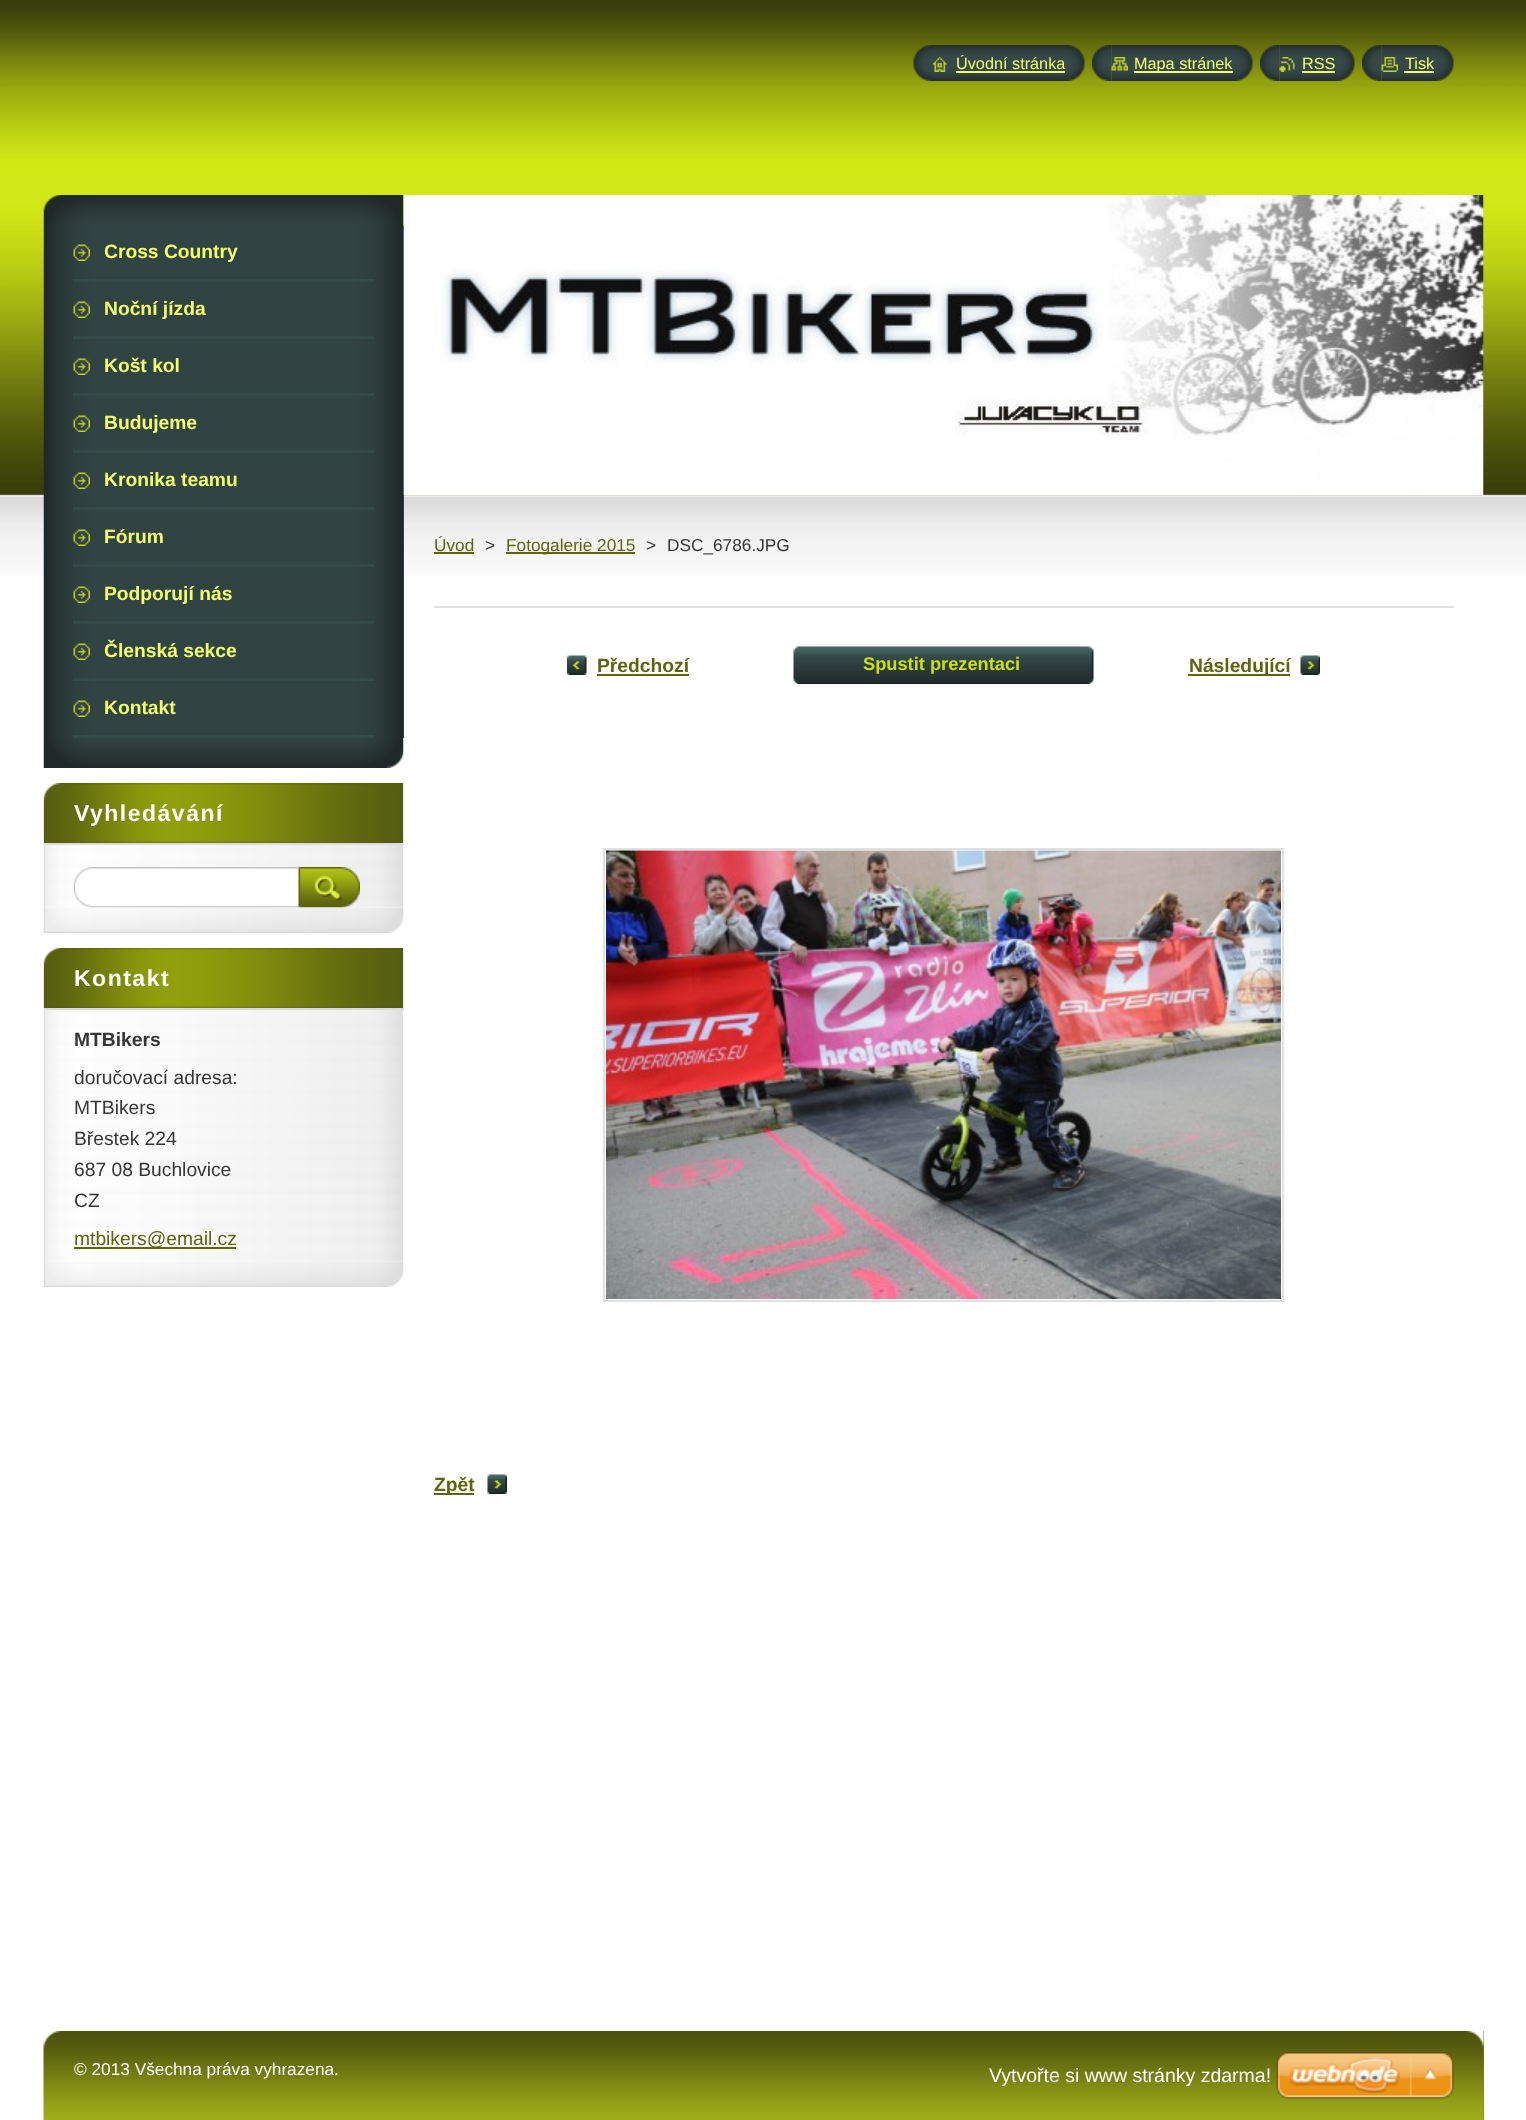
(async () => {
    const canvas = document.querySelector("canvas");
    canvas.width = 1526;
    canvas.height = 2120;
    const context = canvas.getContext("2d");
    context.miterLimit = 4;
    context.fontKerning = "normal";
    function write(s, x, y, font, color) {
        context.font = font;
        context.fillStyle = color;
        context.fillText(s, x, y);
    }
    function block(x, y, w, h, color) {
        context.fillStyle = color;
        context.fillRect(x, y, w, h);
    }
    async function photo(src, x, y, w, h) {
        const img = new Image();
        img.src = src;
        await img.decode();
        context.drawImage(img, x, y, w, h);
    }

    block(0, 0, 1526, 2120, "rgb(255, 255, 255)");
    await photo("media/1.png", 0, 0, 1526, 576);
    await photo("media/2.png", 913, 45, 20, 36);
    await photo("media/3.png", 933, 45, 152, 36);
    await photo("media/4.png", 933, 57, 14, 15);
    write("Úvodní stránka", 956, 69, "16.25px Liberation Sans", "rgb(240, 255, 109)");
    block(956, 71, 109, 2, "rgb(240, 255, 109)");
    await photo("media/5.png", 1092, 45, 20, 36);
    await photo("media/6.png", 1111, 45, 142, 36);
    await photo("media/7.png", 1111, 57, 17, 14);
    block(1134, 71, 99, 2, "rgb(240, 255, 109)");
    write("Mapa stránek", 1134, 69, "16.25px Liberation Sans", "rgb(240, 255, 109)");
    await photo("media/8.png", 1260, 45, 20, 36);
    await photo("media/9.png", 1279, 45, 76, 36);
    await photo("media/10.png", 1279, 57, 16, 15);
    write("RSS", 1302, 69, "16.25px Liberation Sans", "rgb(240, 255, 109)");
    block(1302, 71, 33, 2, "rgb(240, 255, 109)");
    await photo("media/5.png", 1362, 45, 20, 36);
    await photo("media/11.png", 1381, 45, 73, 36);
    await photo("media/12.png", 1381, 57, 17, 15);
    write("Tisk", 1405, 69, "16.25px Liberation Sans", "rgb(240, 255, 109)");
    block(1404, 71, 30, 2, "rgb(240, 255, 109)");
    await photo("media/13.png", 43, 195, 361, 30);
    await photo("media/14.png", 43, 738, 361, 30);
    block(403, 225, 1, 513, "rgb(54, 72, 72)");
    await photo("media/15.png", 43, 225, 361, 513);
    block(73, 279, 301, 3, "rgb(53, 73, 73)");
    await photo("media/16.png", 73, 244, 17, 17);
    write("Cross Country", 104, 258, "bold 19.25px Liberation Sans", "rgb(240, 255, 109)");
    block(73, 336, 301, 3, "rgb(53, 73, 73)");
    await photo("media/16.png", 73, 301, 17, 17);
    write("Noční jízda", 104, 315, "bold 19.25px Liberation Sans", "rgb(240, 255, 109)");
    block(73, 393, 301, 3, "rgb(53, 73, 73)");
    await photo("media/16.png", 73, 358, 17, 17);
    write("Košt kol", 104, 372, "bold 19.25px Liberation Sans", "rgb(240, 255, 109)");
    block(73, 450, 301, 3, "rgb(53, 73, 73)");
    await photo("media/16.png", 73, 415, 17, 17);
    write("Budujeme", 104, 429, "bold 19.25px Liberation Sans", "rgb(240, 255, 109)");
    block(73, 507, 301, 3, "rgb(53, 73, 73)");
    await photo("media/16.png", 73, 472, 17, 17);
    write("Kronika teamu", 104, 486, "bold 19.25px Liberation Sans", "rgb(240, 255, 109)");
    block(73, 564, 301, 3, "rgb(53, 73, 73)");
    await photo("media/16.png", 73, 529, 17, 17);
    write("Fórum", 104, 543, "bold 19.25px Liberation Sans", "rgb(240, 255, 109)");
    block(73, 621, 301, 3, "rgb(53, 73, 73)");
    await photo("media/16.png", 73, 586, 17, 17);
    write("Podporují nás", 104, 600, "bold 19.25px Liberation Sans", "rgb(240, 255, 109)");
    block(73, 678, 301, 3, "rgb(53, 73, 73)");
    await photo("media/16.png", 73, 643, 17, 17);
    write("Členská sekce", 104, 657, "bold 19.25px Liberation Sans", "rgb(240, 255, 109)");
    block(73, 735, 301, 3, "rgb(53, 73, 73)");
    await photo("media/16.png", 73, 700, 17, 17);
    write("Kontakt", 104, 714, "bold 19.25px Liberation Sans", "rgb(240, 255, 109)");
    await photo("media/17.png", 43, 907, 361, 26);
    await photo("media/18.png", 43, 783, 361, 60);
    context.letterSpacing = "1.5px";
    write("Vyhledávání", 74, 821, "bold 23px Liberation Sans", "rgb(255, 255, 255)");
    await photo("media/19.png", 43, 843, 361, 65);
    block(44, 843, 360, 2, "rgb(219, 219, 219)");
    await photo("media/20.png", 73, 867, 227, 41);
    await photo("media/21.png", 298, 867, 62, 41);
    await photo("media/17.png", 43, 1261, 361, 26);
    await photo("media/18.png", 43, 948, 361, 60);
    write("Kontakt", 74, 986, "bold 23px Liberation Sans", "rgb(255, 255, 255)");
    await photo("media/22.png", 43, 1008, 361, 254);
    block(44, 1008, 360, 2, "rgb(219, 219, 219)");
    context.letterSpacing = "0px";
    write("MTBikers", 74, 1046, "bold 19.25px Liberation Sans", "rgb(54, 54, 54)");
    write("doručovací adresa:", 74, 1084, "19.25px Liberation Sans", "rgb(54, 54, 54)");
    write("MTBikers", 74, 1114, "19.25px Liberation Sans", "rgb(54, 54, 54)");
    write("Břestek 224", 74, 1145, "19.25px Liberation Sans", "rgb(54, 54, 54)");
    write("687 08 Buchlovice", 74, 1176, "19.25px Liberation Sans", "rgb(54, 54, 54)");
    write("CZ", 74, 1207, "19.25px Liberation Sans", "rgb(54, 54, 54)");
    block(74, 1247, 162, 2, "rgb(93, 101, 14)");
    write("mtbikers@email.cz", 74, 1245, "19.25px Liberation Sans", "rgb(93, 101, 14)");
    await photo("media/23.png", 403, 195, 1081, 300);
    write("Úvod", 434, 551, "17.25px Liberation Sans", "rgb(93, 101, 14)");
    block(434, 552, 40, 2, "rgb(93, 101, 14)");
    write(">", 485, 551, "17.25px Liberation Sans", "rgb(54, 54, 54)");
    block(506, 552, 129, 2, "rgb(93, 101, 14)");
    write("Fotogalerie 2015", 506, 551, "17.25px Liberation Sans", "rgb(93, 101, 14)");
    write(">", 646, 551, "17.25px Liberation Sans", "rgb(54, 54, 54)");
    write("DSC_6786.JPG", 667, 551, "17.25px Liberation Sans", "rgb(54, 54, 54)");
    block(434, 606, 1020, 2, "rgb(225, 225, 225)");
    await photo("media/24.png", 567, 655, 20, 20);
    write("Předchozí", 597, 672, "bold 19.25px Liberation Sans", "rgb(93, 101, 14)");
    block(597, 674, 92, 2, "rgb(93, 101, 14)");
    await photo("media/25.png", 793, 646, 7, 38);
    await photo("media/26.png", 798, 646, 296, 38);
    write("Spustit prezentaci", 863, 670, "bold 18.25px Liberation Sans", "rgb(202, 223, 22)");
    await photo("media/27.png", 1300, 655, 20, 20);
    block(1188, 674, 102, 2, "rgb(93, 101, 14)");
    write("Následující", 1189, 672, "bold 19.25px Liberation Sans", "rgb(93, 101, 14)");
    context.strokeStyle = "rgb(225, 225, 225)";
    context.lineWidth = 2;
    context.strokeRect(604, 849, 679, 452);
    await photo("media/28.png", 606, 850, 675, 449);
    await photo("media/29.png", 487, 1474, 20, 20);
    block(434, 1493, 40, 2, "rgb(93, 101, 14)");
    write("Zpět", 434, 1491, "bold 19.25px Liberation Sans", "rgb(93, 101, 14)");
    block(1483, 2031, 1, 89, "rgb(114, 125, 18)");
    await photo("media/30.png", 43, 2031, 1441, 89);
    write("© 2013 Všechna práva vyhrazena.", 74, 2075, "17.25px Liberation Sans", "rgb(255, 255, 255)");
    write("Vytvořte si www stránky zdarma!", 989, 2082, "19.5px Liberation Sans", "rgb(255, 255, 255)");
    await photo("media/31.png", 1276, 2052, 178, 47);
})();
